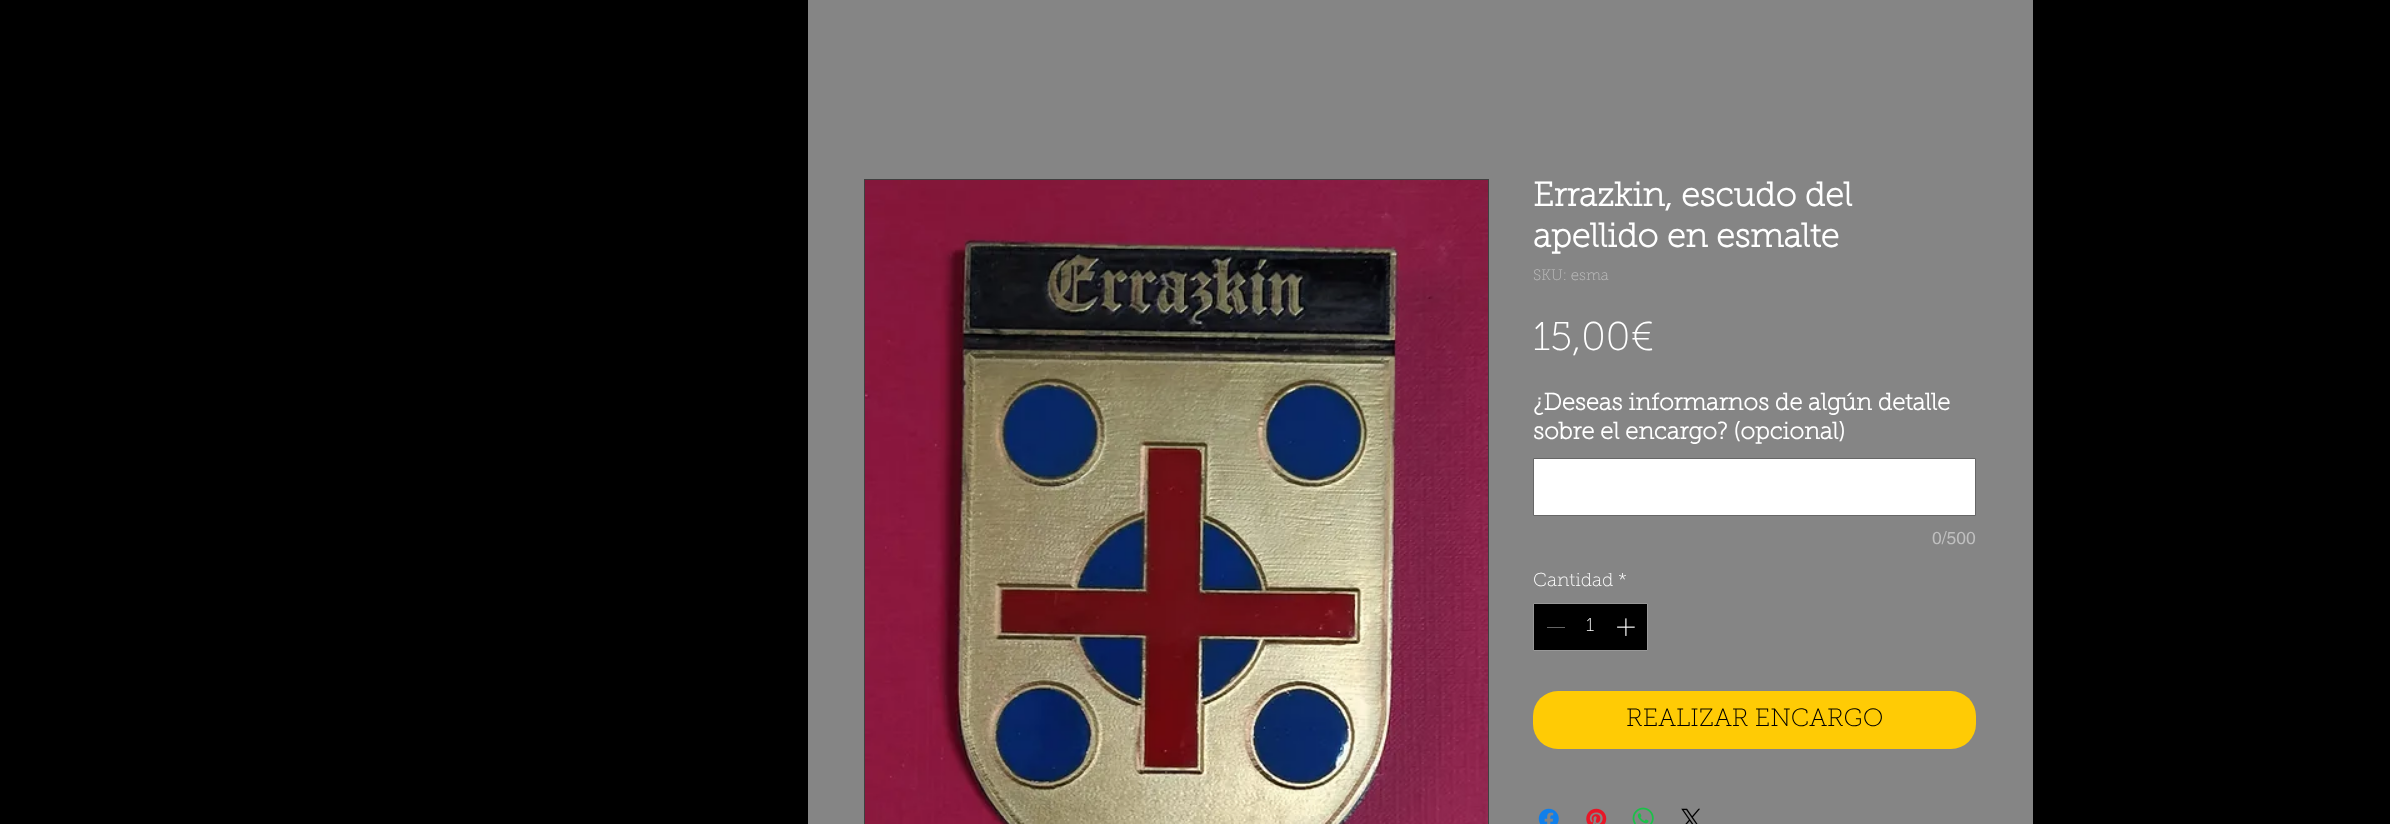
(async () => {
    const canvas = document.querySelector("canvas");
    canvas.width = 2390;
    canvas.height = 824;
    const context = canvas.getContext("2d");
    context.miterLimit = 4;
    context.fontKerning = "normal";
    function write(s, x, y, font, color) {
        context.font = font;
        context.fillStyle = color;
        context.fillText(s, x, y);
    }
    function block(x, y, w, h, color) {
        context.fillStyle = color;
        context.fillRect(x, y, w, h);
    }
    function card(x, y, w, h, r, color) {
        context.fillStyle = color;
        context.beginPath();
        context.roundRect(x, y, w, h, r);
        context.fill();
    }
    async function photo(src, x, y, w, h) {
        const img = new Image();
        img.src = src;
        await img.decode();
        context.drawImage(img, x, y, w, h);
    }

    block(0, 0, 2390, 824, "rgb(0, 0, 0)");
    block(808, 0, 1225, 824, "rgb(133, 133, 133)");
    context.strokeStyle = "rgb(64, 64, 64)";
    context.strokeRect(864.5, 179.5, 624, 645);
    await photo("media/1.png", 865, 180, 623, 644);
    write("Errazkin, escudo del", 1533, 206, "bold 33.75px 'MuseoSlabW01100'", "rgb(255, 255, 255)");
    write("apellido en esmalte", 1533, 247, "bold 33.75px 'MuseoSlabW01100'", "rgb(255, 255, 255)");
    write("SKU: esma", 1533, 280, "100 15px 'MuseoSlabW01100'", "rgb(191, 191, 191)");
    write("15,00€", 1533, 350, "100 40px 'MuseoSlabW01100'", "rgb(255, 255, 255)");
    write("¿Deseas informarnos de algún detalle", 1533, 410, "bold 23.75px 'MuseoSlabW01100'", "rgb(255, 255, 255)");
    write("sobre el encargo? (opcional)", 1533, 439, "bold 23.75px 'MuseoSlabW01100'", "rgb(255, 255, 255)");
    context.beginPath();
    context.rect(1533.5, 458.5, 442, 57);
    context.fill();
    context.strokeStyle = "rgb(102, 102, 102)";
    context.stroke();
    write("0/500", 1932, 544, "17.5px helvetica", "rgb(191, 191, 191)");
    write("Cantidad", 1533, 586, "100 18.75px 'MuseoSlabW01100'", "rgb(255, 255, 255)");
    write("*", 1618, 586, "100 18.75px 'MuseoSlabW01100'", "rgb(255, 255, 255)");
    context.fillStyle = "rgb(0, 0, 0)";
    context.beginPath();
    context.rect(1533.5, 603.5, 114, 47);
    context.fill();
    context.strokeStyle = "rgb(153, 153, 153)";
    context.stroke();
    block(1547, 627, 18, 1, "rgb(100, 100, 100)");
    write("1", 1586, 631, "100 18.75px 'MuseoSlabW01100'", "rgb(255, 255, 255)");
    await photo("media/2.png", 1617, 618, 18, 18);
    card(1533, 691, 443, 58, 25, "rgb(255, 203, 5)");
    write("REALIZAR ENCARGO", 1626, 726, "100 25px 'MuseoSlabW01100'", "rgb(0, 0, 0)");
    await photo("media/3.png", 1538, 808, 21, 16);
    await photo("media/4.png", 1586, 808, 21, 16);
    await photo("media/5.png", 1632, 807, 22, 17);
    await photo("media/6.png", 1681, 808, 19, 16);
})();
